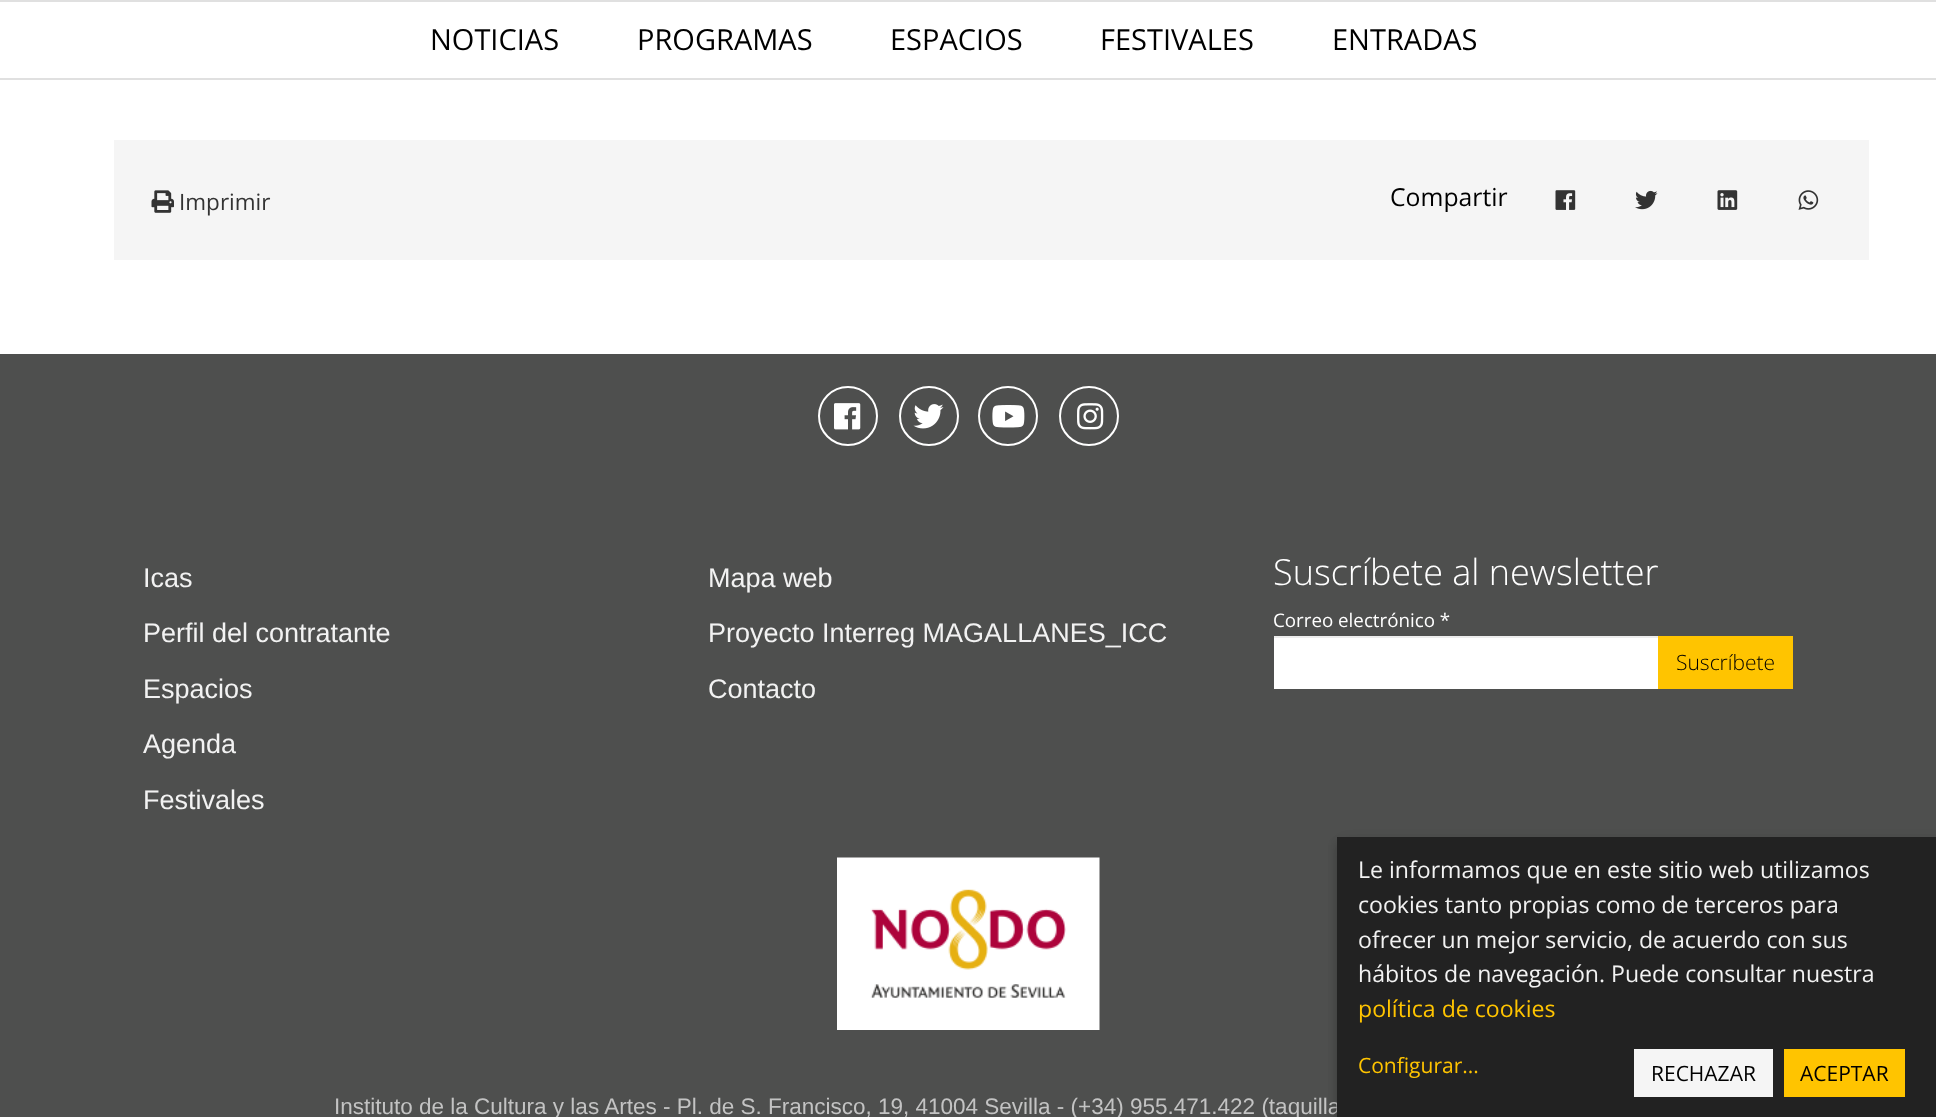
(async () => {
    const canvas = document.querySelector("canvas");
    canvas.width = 1936;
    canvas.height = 1117;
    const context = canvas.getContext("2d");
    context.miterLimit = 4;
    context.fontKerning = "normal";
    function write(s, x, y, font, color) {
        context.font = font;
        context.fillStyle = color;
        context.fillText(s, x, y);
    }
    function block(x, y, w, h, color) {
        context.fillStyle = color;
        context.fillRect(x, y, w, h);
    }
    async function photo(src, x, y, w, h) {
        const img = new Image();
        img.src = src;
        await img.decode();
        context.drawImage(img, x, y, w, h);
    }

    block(0, 0, 1936, 1117, "rgb(78, 79, 78)");
    block(0, 80, 1936, 274, "rgb(255, 255, 255)");
    block(0, 2, 1936, 76, "rgb(255, 255, 255)");
    block(0, 0, 1936, 2, "rgb(224, 224, 224)");
    block(0, 78, 1936, 2, "rgb(224, 224, 224)");
    write("NOTICIAS", 430, 50, "29px Open Sans", "rgb(0, 0, 0)");
    write("PROGRAMAS", 637, 50, "29px Open Sans", "rgb(0, 0, 0)");
    write("ESPACIOS", 890, 50, "29px Open Sans", "rgb(0, 0, 0)");
    write("FESTIVALES", 1100, 50, "29px Open Sans", "rgb(0, 0, 0)");
    write("ENTRADAS", 1332, 50, "29px Open Sans", "rgb(0, 0, 0)");
    block(114, 140, 1755, 120, "rgb(245, 245, 245)");
    await photo("media/1.png", 151, 190, 23, 23);
    write("Imprimir", 179, 210, "22.5px Open Sans", "rgb(51, 51, 51)");
    write("Compartir", 1390, 206, "24.75px Open Sans", "rgb(0, 0, 0)");
    await photo("media/2.png", 1555, 190, 21, 20);
    await photo("media/3.png", 1635, 190, 23, 20);
    await photo("media/4.png", 1717, 190, 21, 20);
    await photo("media/5.png", 1798, 190, 21, 20);
    context.beginPath();
    context.arc(848, 416, 29, 0, Math.PI * 2);
    context.strokeStyle = "rgb(255, 255, 255)";
    context.lineWidth = 2;
    context.stroke();
    await photo("media/6.png", 834, 403, 27, 27);
    context.beginPath();
    context.arc(929, 416, 29, 0, Math.PI * 2);
    context.stroke();
    await photo("media/7.png", 913, 404, 31, 25);
    context.beginPath();
    context.arc(1008, 416, 29, 0, Math.PI * 2);
    context.stroke();
    await photo("media/8.png", 992, 405, 33, 23);
    context.beginPath();
    context.arc(1089, 416, 29, 0, Math.PI * 2);
    context.stroke();
    await photo("media/9.png", 1077, 403, 27, 27);
    write("Icas", 143, 587, "27px Liberation Sans", "rgb(242, 242, 242)");
    write("Perfil del contratante", 143, 642, "27px Liberation Sans", "rgb(242, 242, 242)");
    write("Espacios", 143, 698, "27px Liberation Sans", "rgb(242, 242, 242)");
    write("Agenda", 143, 753, "27px Liberation Sans", "rgb(242, 242, 242)");
    write("Festivales", 143, 809, "27px Liberation Sans", "rgb(242, 242, 242)");
    write("Mapa web", 708, 587, "27px Liberation Sans", "rgb(242, 242, 242)");
    write("Proyecto Interreg MAGALLANES_ICC", 708, 642, "27px Liberation Sans", "rgb(242, 242, 242)");
    write("Contacto", 708, 698, "27px Liberation Sans", "rgb(242, 242, 242)");
    write("Suscríbete al newsletter", 1273, 585, "300 36px Open Sans", "rgb(255, 255, 255)");
    write("Correo electrónico *", 1273, 627, "18.75px Open Sans", "rgb(255, 255, 255)");
    block(1274, 638, 384, 51, "rgb(255, 255, 255)");
    block(1274, 636, 384, 2, "rgb(236, 236, 236)");
    block(1658, 636, 135, 53, "rgb(255, 196, 0)");
    write("Suscríbete", 1676, 670, "300 21px Open Sans", "rgb(0, 0, 0)");
    await photo("media/10.png", 837, 857, 263, 173);
    write("Instituto de la Cultura y las Artes - Pl. de S. Francisco, 19, 41004 Sevilla - (+34) 955.471.422 (taquilla", 334, 1114, "22.5px Liberation Sans", "rgb(195, 195, 195)");
    context.fillStyle = "rgba(0, 0, 0, 0.19)";
    context.filter = "blur(7.5px)";
    context.beginPath();
    context.rect(1344, 845, 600, 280);
    context.fill();
    context.filter = "none";
    context.fillStyle = "rgba(0, 0, 0, 0.2)";
    context.filter = "blur(4.5px)";
    context.beginPath();
    context.rect(1337, 843, 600, 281);
    context.fill();
    context.filter = "none";
    block(1337, 837, 599, 280, "rgb(34, 34, 34)");
    write("Le informamos que en este sitio web utilizamos", 1358, 878, "23.1px Open Sans", "rgb(242, 242, 242)");
    write("cookies tanto propias como de terceros para", 1358, 913, "23.1px Open Sans", "rgb(242, 242, 242)");
    write("ofrecer un mejor servicio, de acuerdo con sus", 1358, 948, "23.1px Open Sans", "rgb(242, 242, 242)");
    write("hábitos de navegación. Puede consultar nuestra", 1358, 982, "23.1px Open Sans", "rgb(242, 242, 242)");
    write("política de cookies", 1358, 1017, "23.1px Open Sans", "rgb(255, 196, 0)");
    write("Configurar...", 1358, 1073, "21px Open Sans", "rgb(255, 196, 0)");
    block(1634, 1049, 139, 48, "rgb(245, 245, 245)");
    write("RECHAZAR", 1651, 1081, "21px Open Sans", "rgb(0, 0, 0)");
    block(1784, 1049, 121, 48, "rgb(255, 196, 0)");
    write("ACEPTAR", 1800, 1081, "21px Open Sans", "rgb(0, 0, 0)");
})();
